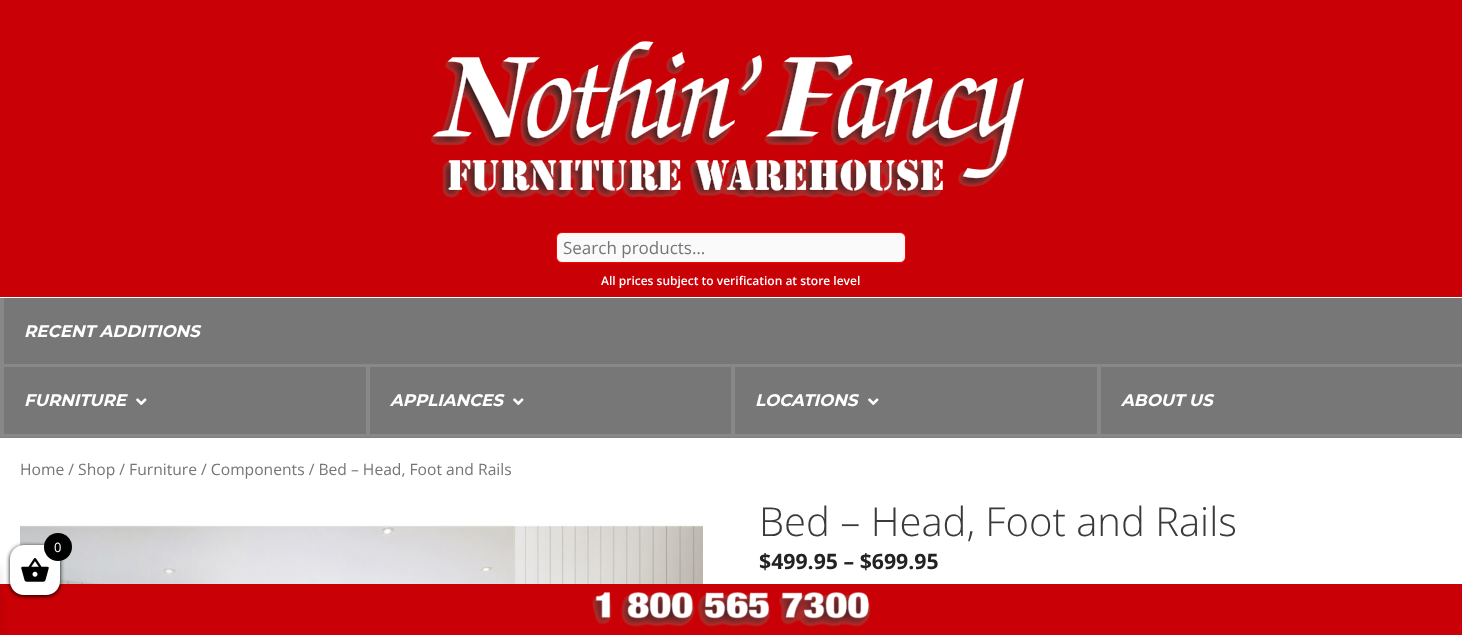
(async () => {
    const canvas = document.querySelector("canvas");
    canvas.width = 1462;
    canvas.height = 635;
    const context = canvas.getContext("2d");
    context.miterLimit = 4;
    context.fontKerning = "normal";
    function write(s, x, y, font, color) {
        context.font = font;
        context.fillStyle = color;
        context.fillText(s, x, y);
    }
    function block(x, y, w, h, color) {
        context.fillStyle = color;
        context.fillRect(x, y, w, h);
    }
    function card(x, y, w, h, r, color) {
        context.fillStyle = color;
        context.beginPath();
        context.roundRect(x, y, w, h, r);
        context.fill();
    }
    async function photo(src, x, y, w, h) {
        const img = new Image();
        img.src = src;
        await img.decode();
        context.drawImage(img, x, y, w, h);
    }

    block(0, 0, 1462, 635, "rgb(255, 255, 255)");
    block(0, 0, 1462, 297, "rgb(201, 0, 6)");
    await photo("media/1.png", 430, 41, 594, 157);
    context.fillStyle = "rgb(250, 250, 250)";
    context.beginPath();
    context.roundRect(556.5, 232.5, 349, 30, 5.5);
    context.fill();
    context.strokeStyle = "rgb(255, 0, 0)";
    context.stroke();
    write("Search products…", 563, 254, "17px Open Sans", "rgb(118, 118, 118)");
    write("All prices subject to verification at store level", 601, 285, "600 12px Open Sans", "rgb(255, 255, 255)");
    block(0, 437, 1462, 1, "rgb(128, 128, 128)");
    block(0, 364, 1462, 3, "rgb(136, 136, 136)");
    block(0, 298, 4, 69, "rgb(136, 136, 136)");
    block(4, 298, 1458, 66, "rgb(119, 119, 119)");
    write("RECENT ADDITIONS", 24, 337, "italic bold 16.75px Montserrat", "rgb(255, 255, 255)");
    block(0, 434, 1462, 3, "rgb(136, 136, 136)");
    block(0, 367, 4, 70, "rgb(136, 136, 136)");
    block(4, 367, 362, 67, "rgb(119, 119, 119)");
    write("FURNITURE", 24, 406, "italic bold 16.75px Montserrat", "rgb(255, 255, 255)");
    await photo("media/2.png", 136, 398, 11, 7);
    block(366, 367, 4, 70, "rgb(136, 136, 136)");
    block(370, 367, 361, 67, "rgb(119, 119, 119)");
    write("APPLIANCES", 390, 406, "italic bold 16.75px Montserrat", "rgb(255, 255, 255)");
    await photo("media/2.png", 513, 398, 11, 7);
    block(731, 367, 4, 70, "rgb(136, 136, 136)");
    block(735, 367, 362, 67, "rgb(119, 119, 119)");
    write("LOCATIONS", 755, 406, "italic bold 16.75px Montserrat", "rgb(255, 255, 255)");
    await photo("media/2.png", 868, 398, 11, 7);
    block(1097, 367, 4, 70, "rgb(136, 136, 136)");
    block(1101, 367, 361, 67, "rgb(119, 119, 119)");
    write("ABOUT US", 1121, 406, "italic bold 16.75px Montserrat", "rgb(255, 255, 255)");
    write("Home / Shop / Furniture / Components / Bed – Head, Foot and Rails", 20, 475, "15.65px Open Sans", "rgb(118, 118, 118)");
    await photo("media/3.png", 20, 524, 683, 60);
    write("Bed – Head, Foot and Rails", 759, 536, "300 40px Open Sans", "rgb(58, 58, 58)");
    write("$499.95 – $699.95", 759, 569, "bold 21.25px Open Sans", "rgb(34, 34, 34)");
    block(0, 584, 1462, 51, "rgb(201, 0, 6)");
    context.fillStyle = "rgb(0, 0, 0)";
    context.filter = "blur(2px)";
    context.beginPath();
    context.roundRect(10, 546, 50, 50, 14);
    context.fill();
    context.filter = "none";
    context.fillStyle = "rgba(0, 0, 0, 0.1)";
    context.filter = "blur(5px)";
    context.beginPath();
    context.rect(-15, 567, 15, 67);
    context.fill();
    context.filter = "none";
    card(10, 545, 50, 50, 14, "rgb(255, 255, 255)");
    await photo("media/4.png", 21, 558, 28, 24);
    context.fillStyle = "rgb(0, 0, 0)";
    context.beginPath();
    context.arc(58, 547, 14, 0, Math.PI * 2);
    context.fill();
    write("0", 54, 552, "13px Open Sans", "rgb(255, 255, 255)");
    await photo("media/5.png", 592, 592, 279, 35);
})();
